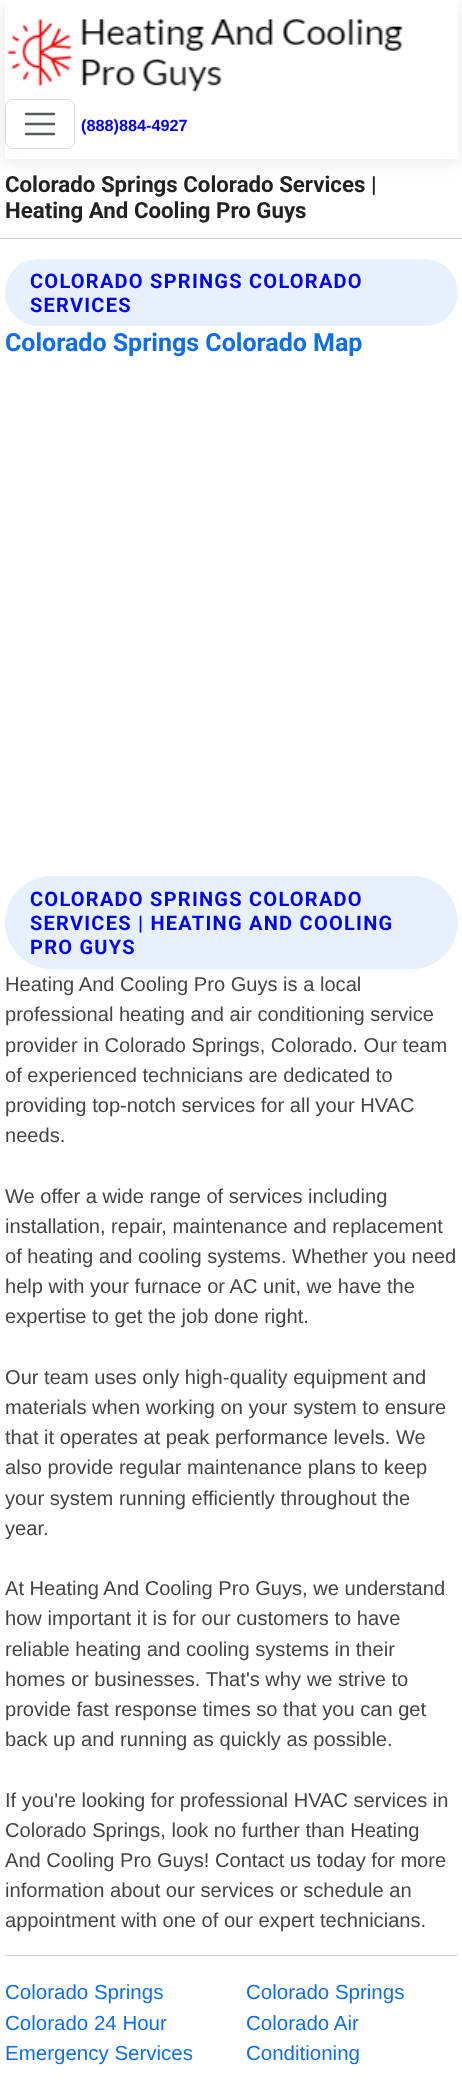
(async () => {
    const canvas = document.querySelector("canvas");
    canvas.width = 462;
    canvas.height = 2085;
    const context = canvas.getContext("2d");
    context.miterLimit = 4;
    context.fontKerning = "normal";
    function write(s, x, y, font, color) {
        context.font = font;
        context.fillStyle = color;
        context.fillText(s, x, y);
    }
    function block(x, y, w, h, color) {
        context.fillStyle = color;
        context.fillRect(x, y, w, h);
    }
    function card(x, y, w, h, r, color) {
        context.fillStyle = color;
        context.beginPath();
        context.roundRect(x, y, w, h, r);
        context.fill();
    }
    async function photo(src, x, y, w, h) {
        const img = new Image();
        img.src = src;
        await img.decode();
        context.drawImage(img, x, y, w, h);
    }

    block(0, 0, 462, 2085, "rgb(255, 255, 255)");
    context.fillStyle = "rgba(0, 0, 0, 0.1)";
    context.filter = "blur(9.5px)";
    context.beginPath();
    context.rect(5, 3, 453, 158);
    context.fill();
    context.filter = "none";
    block(5, 0, 453, 159, "rgb(255, 255, 255)");
    await photo("media/1.png", 7, 19, 396, 73);
    context.beginPath();
    context.roundRect(5.5, 99.5, 69, 49, 7.5);
    context.strokeStyle = "rgb(217, 217, 217)";
    context.stroke();
    context.beginPath();
    context.moveTo(26, 114);
    context.lineTo(54, 114);
    context.moveTo(26, 124);
    context.lineTo(54, 124);
    context.moveTo(26, 134);
    context.lineTo(54, 134);
    context.strokeStyle = "rgb(89, 92, 95)";
    context.lineWidth = 2.5;
    context.lineCap = "round";
    context.stroke();
    write("(888)884-4927", 81, 131, "bold 16.25px Liberation Sans", "rgb(0, 0, 255)");
    write("Colorado Springs Colorado Services |", 5, 192, "bold 22.25px Roboto", "rgb(34, 34, 34)");
    write("Heating And Cooling Pro Guys", 5, 218, "bold 22.25px Roboto", "rgb(34, 34, 34)");
    block(0, 238, 462, 1, "rgb(208, 208, 208)");
    card(5, 259, 453, 67, 33.5, "rgb(231, 241, 253)");
    context.letterSpacing = "1.25px";
    write("COLORADO SPRINGS COLORADO", 30, 288, "bold 20px Roboto", "rgb(0, 0, 255)");
    write("SERVICES", 30, 312, "bold 20px Roboto", "rgb(0, 0, 255)");
    context.letterSpacing = "0px";
    write("Colorado Springs Colorado Map", 5, 351, "bold 25px Roboto", "rgb(16, 110, 234)");
    card(5, 876, 453, 93, 46.5, "rgb(231, 241, 253)");
    context.letterSpacing = "1.25px";
    write("COLORADO SPRINGS COLORADO", 30, 906, "bold 20px Roboto", "rgb(0, 0, 255)");
    write("SERVICES | HEATING AND COOLING", 30, 930, "bold 20px Roboto", "rgb(0, 0, 255)");
    write("PRO GUYS", 30, 954, "bold 20px Roboto", "rgb(0, 0, 255)");
    context.letterSpacing = "0px";
    write("Heating And Cooling Pro Guys is a local", 5, 991, "20.1px Liberation Sans", "rgb(68, 68, 68)");
    write("professional heating and air conditioning service", 5, 1021, "20.1px Liberation Sans", "rgb(68, 68, 68)");
    write("provider in Colorado Springs, Colorado. Our team", 5, 1052, "20.1px Liberation Sans", "rgb(68, 68, 68)");
    write("of experienced technicians are dedicated to", 5, 1082, "20.1px Liberation Sans", "rgb(68, 68, 68)");
    write("providing top-notch services for all your HVAC", 5, 1112, "20.1px Liberation Sans", "rgb(68, 68, 68)");
    write("needs.", 5, 1142, "20.1px Liberation Sans", "rgb(68, 68, 68)");
    write("We offer a wide range of services including", 5, 1203, "20.1px Liberation Sans", "rgb(68, 68, 68)");
    write("installation, repair, maintenance and replacement", 5, 1233, "20.1px Liberation Sans", "rgb(68, 68, 68)");
    write("of heating and cooling systems. Whether you need", 5, 1263, "20.1px Liberation Sans", "rgb(68, 68, 68)");
    write("help with your furnace or AC unit, we have the", 5, 1293, "20.1px Liberation Sans", "rgb(68, 68, 68)");
    write("expertise to get the job done right.", 5, 1323, "20.1px Liberation Sans", "rgb(68, 68, 68)");
    write("Our team uses only high-quality equipment and", 5, 1384, "20.1px Liberation Sans", "rgb(68, 68, 68)");
    write("materials when working on your system to ensure", 5, 1414, "20.1px Liberation Sans", "rgb(68, 68, 68)");
    write("that it operates at peak performance levels. We", 5, 1444, "20.1px Liberation Sans", "rgb(68, 68, 68)");
    write("also provide regular maintenance plans to keep", 5, 1474, "20.1px Liberation Sans", "rgb(68, 68, 68)");
    write("your system running efficiently throughout the", 5, 1505, "20.1px Liberation Sans", "rgb(68, 68, 68)");
    write("year.", 5, 1535, "20.1px Liberation Sans", "rgb(68, 68, 68)");
    write("At Heating And Cooling Pro Guys, we understand", 5, 1595, "20.1px Liberation Sans", "rgb(68, 68, 68)");
    write("how important it is for our customers to have", 5, 1625, "20.1px Liberation Sans", "rgb(68, 68, 68)");
    write("reliable heating and cooling systems in their", 5, 1656, "20.1px Liberation Sans", "rgb(68, 68, 68)");
    write("homes or businesses. That's why we strive to", 5, 1686, "20.1px Liberation Sans", "rgb(68, 68, 68)");
    write("provide fast response times so that you can get", 5, 1716, "20.1px Liberation Sans", "rgb(68, 68, 68)");
    write("back up and running as quickly as possible.", 5, 1746, "20.1px Liberation Sans", "rgb(68, 68, 68)");
    write("If you're looking for professional HVAC services in", 5, 1807, "20.1px Liberation Sans", "rgb(68, 68, 68)");
    write("Colorado Springs, look no further than Heating", 5, 1837, "20.1px Liberation Sans", "rgb(68, 68, 68)");
    write("And Cooling Pro Guys! Contact us today for more", 5, 1867, "20.1px Liberation Sans", "rgb(68, 68, 68)");
    write("information about our services or schedule an", 5, 1897, "20.1px Liberation Sans", "rgb(68, 68, 68)");
    write("appointment with one of our expert technicians.", 5, 1927, "20.1px Liberation Sans", "rgb(68, 68, 68)");
    block(5, 1955, 453, 1, "rgb(208, 208, 208)");
    write("Colorado Springs", 5, 1999, "20.5px Liberation Sans", "rgb(16, 110, 234)");
    write("Colorado 24 Hour", 5, 2030, "20.5px Liberation Sans", "rgb(16, 110, 234)");
    write("Emergency Services", 5, 2060, "20.5px Liberation Sans", "rgb(16, 110, 234)");
    write("Colorado Springs", 246, 1999, "20.5px Liberation Sans", "rgb(16, 110, 234)");
    write("Colorado Air", 246, 2030, "20.5px Liberation Sans", "rgb(16, 110, 234)");
    write("Conditioning", 246, 2060, "20.5px Liberation Sans", "rgb(16, 110, 234)");
})();
